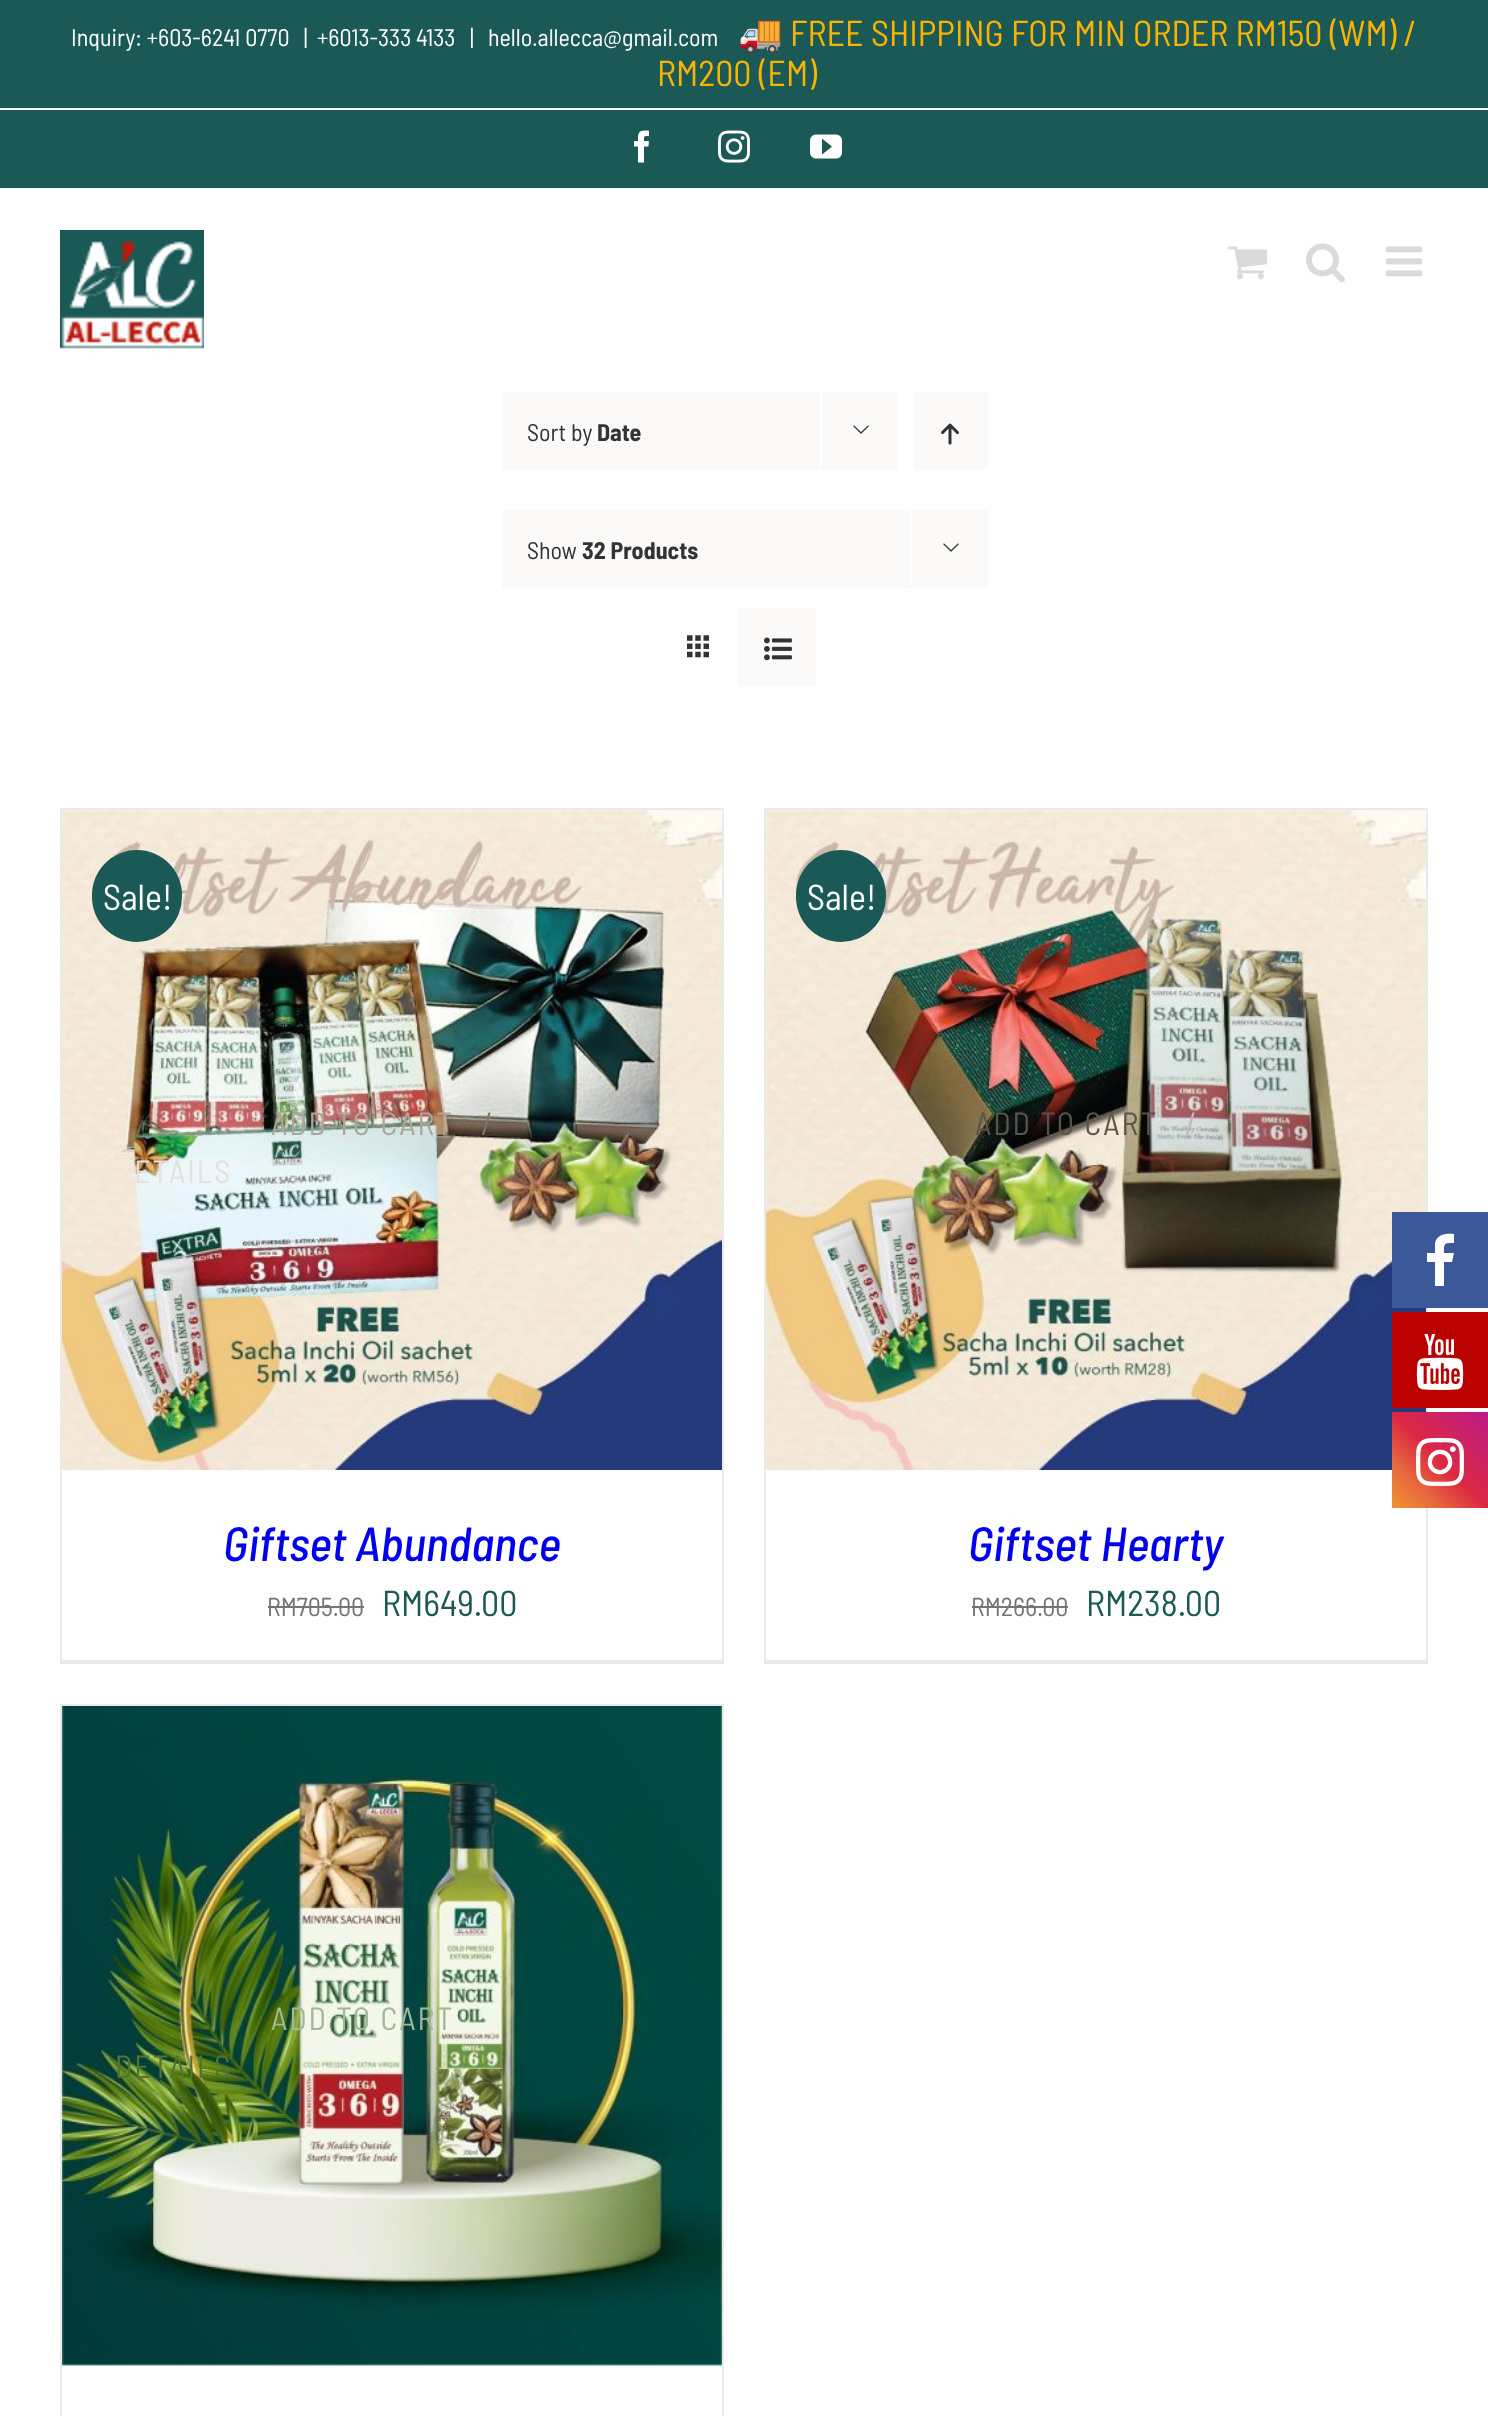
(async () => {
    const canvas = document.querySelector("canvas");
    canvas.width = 1488;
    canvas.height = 2416;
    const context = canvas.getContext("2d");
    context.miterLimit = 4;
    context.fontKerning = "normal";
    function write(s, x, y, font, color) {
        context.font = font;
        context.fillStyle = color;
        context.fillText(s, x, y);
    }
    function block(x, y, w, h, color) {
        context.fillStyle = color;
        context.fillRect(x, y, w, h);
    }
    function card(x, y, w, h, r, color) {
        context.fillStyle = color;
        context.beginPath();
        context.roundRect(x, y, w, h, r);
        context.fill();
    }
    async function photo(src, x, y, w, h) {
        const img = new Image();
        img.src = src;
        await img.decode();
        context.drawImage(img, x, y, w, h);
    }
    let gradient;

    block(0, 0, 1488, 2416, "rgb(255, 255, 255)");
    block(0, 0, 1488, 188, "rgb(27, 89, 86)");
    block(0, 108, 1488, 2, "rgb(255, 255, 255)");
    write("Inquiry: +603-6241 0770   |", 71, 46, "24px Barlow Semi Condensed", "rgb(255, 255, 255)");
    write("+6013-333 4133", 317, 46, "24px Barlow Semi Condensed", "rgb(255, 255, 255)");
    write("|", 470, 46, "24px Barlow Semi Condensed", "rgb(255, 255, 255)");
    write("hello.allecca@gmail.com", 488, 46, "24px Barlow Semi Condensed", "rgb(255, 255, 255)");
    write("🚚", 738, 46, "36px Noto Color Emoji", "rgb(248, 180, 0)");
    write("FREE SHIPPING FOR MIN ORDER RM150 (WM) /", 790, 46, "36px Barlow Semi Condensed", "rgb(248, 180, 0)");
    write("RM200 (EM)", 657, 86, "36px Barlow Semi Condensed", "rgb(248, 180, 0)");
    await photo("media/1.png", 634, 130, 15, 33);
    await photo("media/2.png", 718, 130, 32, 33);
    await photo("media/3.png", 810, 134, 32, 25);
    await photo("media/4.png", 60, 230, 144, 119);
    await photo("media/5.png", 1228, 246, 39, 34);
    await photo("media/6.png", 1306, 243, 39, 40);
    await photo("media/7.png", 1386, 246, 36, 31);
    block(502, 392, 396, 78, "rgb(251, 250, 249)");
    write("Sort by", 527, 441, "24px Barlow Semi Condensed", "rgb(51, 51, 51)");
    write("Date", 597, 441, "bold 24px Barlow Semi Condensed", "rgb(51, 51, 51)");
    block(820, 390, 2, 78, "rgb(255, 255, 255)");
    await photo("media/8.png", 853, 425, 16, 9);
    block(914, 392, 74, 78, "rgb(251, 250, 249)");
    await photo("media/9.png", 941, 423, 18, 22);
    block(502, 510, 486, 78, "rgb(251, 250, 249)");
    write("Show", 527, 559, "24px Barlow Semi Condensed", "rgb(51, 51, 51)");
    write("32 Products", 582, 559, "bold 24px Barlow Semi Condensed", "rgb(51, 51, 51)");
    block(910, 508, 2, 78, "rgb(255, 255, 255)");
    await photo("media/8.png", 943, 543, 16, 9);
    await photo("media/10.png", 687, 635, 22, 23);
    block(738, 608, 78, 78, "rgb(251, 250, 249)");
    await photo("media/11.png", 764, 637, 28, 24);
    block(60, 808, 664, 2, "rgb(235, 234, 234)");
    block(722, 808, 2, 856, "rgb(235, 234, 234)");
    block(60, 1660, 664, 4, "rgb(235, 234, 234)");
    block(60, 808, 2, 856, "rgb(235, 234, 234)");
    await photo("media/12.png", 62, 810, 660, 660);
    card(92, 850, 90, 92, 45, "rgb(27, 89, 86)");
    write("Sale!", 103, 910, "36px Barlow Semi Condensed", "rgb(255, 255, 255)");
    context.letterSpacing = "2px";
    write("ADD TO CART", 271, 1135, "32px Barlow Semi Condensed", "rgb(172, 165, 154)");
    context.letterSpacing = "0px";
    write("/", 481, 1135, "32px Barlow Semi Condensed", "rgb(126, 116, 105)");
    context.letterSpacing = "2px";
    write("ETAILS", 134, 1183, "32px Barlow Semi Condensed", "rgb(226, 225, 218)");
    context.letterSpacing = "0px";
    write("Giftset Abundance", 223, 1561, "italic 500 48px Barlow Semi Condensed", "rgb(0, 0, 238)");
    write("RM705.00", 267, 1616, "26px Barlow Semi Condensed", "rgb(116, 116, 116)");
    block(268, 1606, 96, 2, "rgb(116, 116, 116)");
    write("RM649.00", 382, 1616, "36px Barlow Semi Condensed", "rgb(27, 89, 86)");
    block(764, 808, 664, 2, "rgb(235, 234, 234)");
    block(1426, 808, 2, 856, "rgb(235, 234, 234)");
    block(764, 1660, 664, 4, "rgb(235, 234, 234)");
    block(764, 808, 2, 856, "rgb(235, 234, 234)");
    await photo("media/13.png", 766, 810, 660, 660);
    card(796, 850, 90, 92, 45, "rgb(27, 89, 86)");
    write("Sale!", 807, 910, "36px Barlow Semi Condensed", "rgb(255, 255, 255)");
    context.letterSpacing = "2px";
    write("ADD TO CART", 975, 1135, "32px Barlow Semi Condensed", "rgb(90, 85, 73)");
    context.letterSpacing = "0px";
    write("/", 1185, 1135, "32px Barlow Semi Condensed", "rgb(195, 183, 183)");
    write("Giftset Hearty", 968, 1561, "italic 500 48px Barlow Semi Condensed", "rgb(0, 0, 238)");
    write("RM266.00", 971, 1616, "26px Barlow Semi Condensed", "rgb(116, 116, 116)");
    block(972, 1606, 96, 2, "rgb(116, 116, 116)");
    write("RM238.00", 1086, 1616, "36px Barlow Semi Condensed", "rgb(27, 89, 86)");
    block(60, 1704, 664, 2, "rgb(235, 234, 234)");
    block(722, 1704, 2, 712, "rgb(235, 234, 234)");
    block(60, 1704, 2, 712, "rgb(235, 234, 234)");
    await photo("media/14.png", 62, 1706, 660, 660);
    context.letterSpacing = "2px";
    write("ADD TO CART", 271, 2030, "32px Barlow Semi Condensed", "rgb(160, 184, 153)");
    write("DETAILS", 115, 2078, "32px Barlow Semi Condensed", "rgb(79, 117, 46)");
    block(1392, 1212, 96, 96, "rgb(59, 89, 152)");
    context.fillStyle = "rgb(255, 255, 255)";
    context.beginPath();
    context.moveTo(1454, 1234);
    context.lineTo(1454, 1243);
    context.bezierCurveTo(1444, 1243, 1444, 1243, 1444, 1253);
    context.lineTo(1454, 1253);
    context.lineTo(1452, 1262);
    context.lineTo(1444, 1262);
    context.lineTo(1444, 1286);
    context.lineTo(1435, 1286);
    context.lineTo(1435, 1262);
    context.lineTo(1427, 1262);
    context.lineTo(1427, 1253);
    context.lineTo(1435, 1253);
    context.lineTo(1435, 1243);
    context.bezierCurveTo(1437, 1234, 1446, 1233, 1454, 1234);
    context.closePath();
    context.fill();
    block(1392, 1312, 96, 96, "rgb(187, 0, 0)");
    await photo("media/15.png", 1416, 1334, 48, 56);
    gradient = context.createLinearGradient(1392, 1508, 1488, 1412);
    gradient.addColorStop(0, "rgb(240, 148, 51)");
    gradient.addColorStop(0.25, "rgb(230, 104, 60)");
    gradient.addColorStop(0.5, "rgb(220, 39, 67)");
    gradient.addColorStop(0.75, "rgb(204, 35, 102)");
    gradient.addColorStop(1, "rgb(188, 24, 136)");
    context.fillStyle = gradient;
    context.fillRect(1392, 1412, 96, 96);
    await photo("media/16.png", 1416, 1438, 48, 48);
})();
